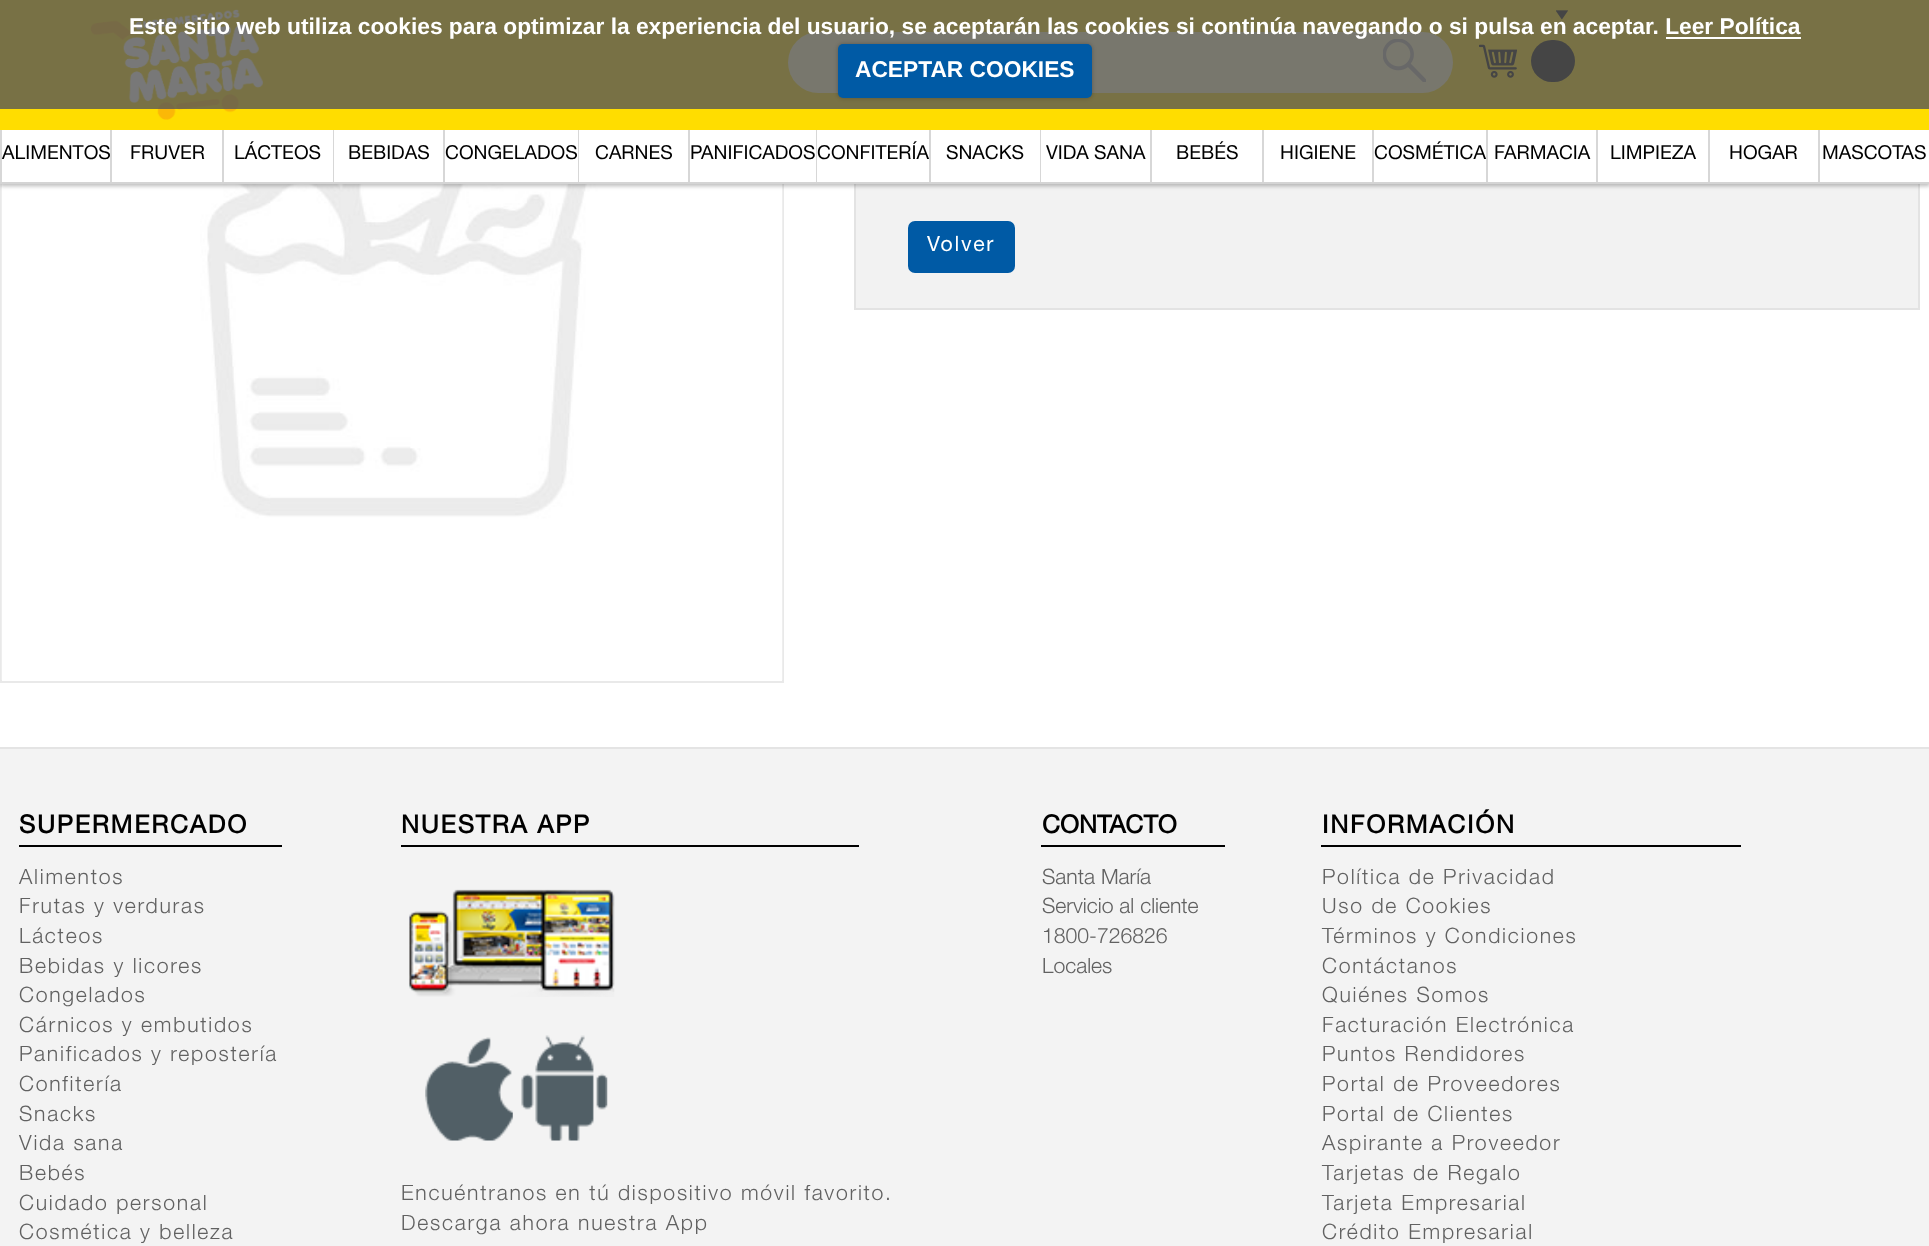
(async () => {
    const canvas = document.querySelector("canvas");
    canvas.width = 1929;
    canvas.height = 1246;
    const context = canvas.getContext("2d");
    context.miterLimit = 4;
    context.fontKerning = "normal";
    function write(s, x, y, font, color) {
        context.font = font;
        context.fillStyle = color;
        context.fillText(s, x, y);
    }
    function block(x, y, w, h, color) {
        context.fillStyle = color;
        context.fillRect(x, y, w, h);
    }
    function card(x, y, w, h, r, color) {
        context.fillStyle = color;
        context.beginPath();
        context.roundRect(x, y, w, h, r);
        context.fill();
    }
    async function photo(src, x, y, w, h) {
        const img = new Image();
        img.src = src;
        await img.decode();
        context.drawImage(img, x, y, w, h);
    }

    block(0, 0, 1929, 1246, "rgb(255, 255, 255)");
    context.strokeStyle = "rgb(233, 233, 233)";
    context.lineWidth = 2;
    context.strokeRect(1, -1, 782, 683);
    await photo("media/5.png", 1, 184, 782, 496);
    block(856, 184, 1062, 124, "rgb(242, 242, 242)");
    context.strokeStyle = "rgb(227, 227, 227)";
    context.strokeRect(855, -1, 1064, 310);
    context.fillStyle = "rgba(50, 50, 50, 0.34)";
    context.filter = "blur(2px)";
    context.beginPath();
    context.rect(0, 2, 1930, 184);
    context.fill();
    context.filter = "none";
    block(0, 0, 1929, 130, "rgb(255, 221, 0)");
    await photo("media/1.png", 90, 9, 174, 111);
    card(788, 32, 665, 61, 30.5, "rgb(255, 249, 199)");
    await photo("media/2.png", 1383, 39, 43, 43);
    await photo("media/3.png", 1479, 44, 38, 34);
    await photo("media/4.png", 1556, 10, 12, 10);
    card(1531, 40, 44, 42, 21, "rgb(0, 0, 0)");
    block(0, 0, 1929, 109, "rgba(86, 86, 86, 0.8)");
    write("Este sitio web utiliza cookies para optimizar la experiencia del usuario, se aceptarán las cookies si continúa navegando o si pulsa en aceptar. Leer Política", 129, 34, "bold 22.75px Liberation Sans", "rgb(255, 255, 255)");
    block(1666, 37, 135, 2, "rgb(255, 255, 255)");
    context.fillStyle = "rgba(0, 0, 0, 0.25)";
    context.filter = "blur(2px)";
    context.beginPath();
    context.roundRect(838, 44, 254, 54, 5);
    context.fill();
    context.filter = "none";
    card(838, 44, 254, 54, 5, "rgb(0, 90, 165)");
    write("ACEPTAR COOKIES", 855, 77, "bold 22.75px Liberation Sans", "rgb(255, 255, 255)");
    block(2, 130, 1927, 52, "rgb(255, 255, 255)");
    block(0, 182, 1929, 2, "rgb(212, 212, 212)");
    block(110, 130, 2, 52, "rgb(215, 215, 215)");
    block(0, 130, 2, 52, "rgb(215, 215, 215)");
    write("ALIMENTOS", 2, 159, "19.25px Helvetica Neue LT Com", "rgb(0, 0, 0)");
    block(222, 130, 2, 52, "rgb(215, 215, 215)");
    write("FRUVER", 130, 159, "19.25px Helvetica Neue LT Com", "rgb(0, 0, 0)");
    block(333, 130, 1, 52, "rgb(215, 215, 215)");
    write("LÁCTEOS", 234, 159, "19.25px Helvetica Neue LT Com", "rgb(0, 0, 0)");
    block(443, 130, 2, 52, "rgb(215, 215, 215)");
    write("BEBIDAS", 348, 159, "19.25px Helvetica Neue LT Com", "rgb(0, 0, 0)");
    block(578, 130, 1, 52, "rgb(215, 215, 215)");
    write("CONGELADOS", 445, 159, "19.25px Helvetica Neue LT Com", "rgb(0, 0, 0)");
    block(688, 130, 2, 52, "rgb(215, 215, 215)");
    write("CARNES", 595, 159, "19.25px Helvetica Neue LT Com", "rgb(0, 0, 0)");
    block(816, 130, 1, 52, "rgb(215, 215, 215)");
    write("PANIFICADOS", 690, 159, "19.25px Helvetica Neue LT Com", "rgb(0, 0, 0)");
    block(929, 130, 2, 52, "rgb(215, 215, 215)");
    write("CONFITERÍA", 817, 159, "19.25px Helvetica Neue LT Com", "rgb(0, 0, 0)");
    block(1040, 130, 1, 52, "rgb(215, 215, 215)");
    write("SNACKS", 946, 159, "19.25px Helvetica Neue LT Com", "rgb(0, 0, 0)");
    block(1150, 130, 2, 52, "rgb(215, 215, 215)");
    write("VIDA SANA", 1046, 159, "19.25px Helvetica Neue LT Com", "rgb(0, 0, 0)");
    block(1262, 130, 2, 52, "rgb(215, 215, 215)");
    write("BEBÉS", 1176, 159, "19.25px Helvetica Neue LT Com", "rgb(0, 0, 0)");
    block(1372, 130, 2, 52, "rgb(215, 215, 215)");
    write("HIGIENE", 1280, 159, "19.25px Helvetica Neue LT Com", "rgb(0, 0, 0)");
    block(1486, 130, 2, 52, "rgb(215, 215, 215)");
    write("COSMÉTICA", 1374, 159, "19.25px Helvetica Neue LT Com", "rgb(0, 0, 0)");
    block(1596, 130, 2, 52, "rgb(215, 215, 215)");
    write("FARMACIA", 1494, 159, "19.25px Helvetica Neue LT Com", "rgb(0, 0, 0)");
    block(1708, 130, 2, 52, "rgb(215, 215, 215)");
    write("LIMPIEZA", 1610, 159, "19.25px Helvetica Neue LT Com", "rgb(0, 0, 0)");
    block(1818, 130, 2, 52, "rgb(215, 215, 215)");
    write("HOGAR", 1729, 159, "19.25px Helvetica Neue LT Com", "rgb(0, 0, 0)");
    write("MASCOTAS", 1822, 159, "19.25px Helvetica Neue LT Com", "rgb(0, 0, 0)");
    context.fillStyle = "rgb(0, 90, 165)";
    context.beginPath();
    context.roundRect(909, 222, 105, 50, 6);
    context.fill();
    context.strokeStyle = "rgb(0, 90, 165)";
    context.stroke();
    context.letterSpacing = "1.75px";
    write("Volver", 927, 251, "21.2px Helvetica Neue LT Com", "rgb(255, 255, 255)");
    block(0, 749, 1929, 497, "rgb(243, 243, 243)");
    block(0, 747, 1929, 2, "rgb(228, 228, 228)");
    block(19, 845, 263, 2, "rgb(0, 0, 0)");
    write("SUPERMERCADO", 19, 833, "bold 25px Helvetica Neue LT Com", "rgb(0, 0, 0)");
    write("Alimentos", 19, 884, "300 21.2px Helvetica Neue LT Com", "rgb(97, 97, 97)");
    write("Frutas y verduras", 19, 913, "300 21.2px Helvetica Neue LT Com", "rgb(97, 97, 97)");
    write("Lácteos", 19, 943, "300 21.2px Helvetica Neue LT Com", "rgb(97, 97, 97)");
    write("Bebidas y licores", 19, 973, "300 21.2px Helvetica Neue LT Com", "rgb(97, 97, 97)");
    write("Congelados", 19, 1002, "300 21.2px Helvetica Neue LT Com", "rgb(97, 97, 97)");
    write("Cárnicos y embutidos", 19, 1032, "300 21.2px Helvetica Neue LT Com", "rgb(97, 97, 97)");
    write("Panificados y repostería", 19, 1061, "300 21.2px Helvetica Neue LT Com", "rgb(97, 97, 97)");
    write("Confitería", 19, 1091, "300 21.2px Helvetica Neue LT Com", "rgb(97, 97, 97)");
    write("Snacks", 19, 1121, "300 21.2px Helvetica Neue LT Com", "rgb(97, 97, 97)");
    write("Vida sana", 19, 1150, "300 21.2px Helvetica Neue LT Com", "rgb(97, 97, 97)");
    write("Bebés", 19, 1180, "300 21.2px Helvetica Neue LT Com", "rgb(97, 97, 97)");
    write("Cuidado personal", 19, 1210, "300 21.2px Helvetica Neue LT Com", "rgb(97, 97, 97)");
    write("Cosmética y belleza", 19, 1239, "300 21.2px Helvetica Neue LT Com", "rgb(97, 97, 97)");
    block(401, 845, 458, 2, "rgb(0, 0, 0)");
    write("NUESTRA APP", 401, 833, "bold 25px Helvetica Neue LT Com", "rgb(0, 0, 0)");
    await photo("media/6.png", 409, 889, 206, 108);
    await photo("media/7.png", 425, 1037, 88, 104);
    await photo("media/8.png", 521, 1035, 87, 106);
    write("Encuéntranos en tú dispositivo móvil favorito.", 401, 1200, "300 21.2px Helvetica Neue LT Com", "rgb(97, 97, 97)");
    write("Descarga ahora nuestra App", 401, 1230, "300 21.2px Helvetica Neue LT Com", "rgb(97, 97, 97)");
    block(1041, 845, 184, 2, "rgb(0, 0, 0)");
    context.letterSpacing = "0px";
    write("CONTACTO", 1042, 833, "bold 25px Helvetica Neue LT Com", "rgb(0, 0, 0)");
    write("Santa María", 1042, 884, "300 21.2px Helvetica Neue LT Com", "rgb(97, 97, 97)");
    write("Servicio al cliente", 1042, 913, "300 21.2px Helvetica Neue LT Com", "rgb(97, 97, 97)");
    write("1800-726826", 1042, 943, "300 21.2px Helvetica Neue LT Com", "rgb(97, 97, 97)");
    write("Locales", 1042, 973, "300 21.2px Helvetica Neue LT Com", "rgb(97, 97, 97)");
    block(1321, 845, 420, 2, "rgb(0, 0, 0)");
    context.letterSpacing = "1.75px";
    write("INFORMACIÓN", 1322, 833, "bold 25px Helvetica Neue LT Com", "rgb(0, 0, 0)");
    write("Política de Privacidad", 1322, 884, "300 21.2px Helvetica Neue LT Com", "rgb(97, 97, 97)");
    write("Uso de Cookies", 1322, 913, "300 21.2px Helvetica Neue LT Com", "rgb(97, 97, 97)");
    write("Términos y Condiciones", 1322, 943, "300 21.2px Helvetica Neue LT Com", "rgb(97, 97, 97)");
    write("Contáctanos", 1322, 973, "300 21.2px Helvetica Neue LT Com", "rgb(97, 97, 97)");
    write("Quiénes Somos", 1322, 1002, "300 21.2px Helvetica Neue LT Com", "rgb(97, 97, 97)");
    write("Facturación Electrónica", 1322, 1032, "300 21.2px Helvetica Neue LT Com", "rgb(97, 97, 97)");
    write("Puntos Rendidores", 1322, 1061, "300 21.2px Helvetica Neue LT Com", "rgb(97, 97, 97)");
    write("Portal de Proveedores", 1322, 1091, "300 21.2px Helvetica Neue LT Com", "rgb(97, 97, 97)");
    write("Portal de Clientes", 1322, 1121, "300 21.2px Helvetica Neue LT Com", "rgb(97, 97, 97)");
    write("Aspirante a Proveedor", 1322, 1150, "300 21.2px Helvetica Neue LT Com", "rgb(97, 97, 97)");
    write("Tarjetas de Regalo", 1322, 1180, "300 21.2px Helvetica Neue LT Com", "rgb(97, 97, 97)");
    write("Tarjeta Empresarial", 1322, 1210, "300 21.2px Helvetica Neue LT Com", "rgb(97, 97, 97)");
    write("Crédito Empresarial", 1322, 1239, "300 21.2px Helvetica Neue LT Com", "rgb(97, 97, 97)");
})();
